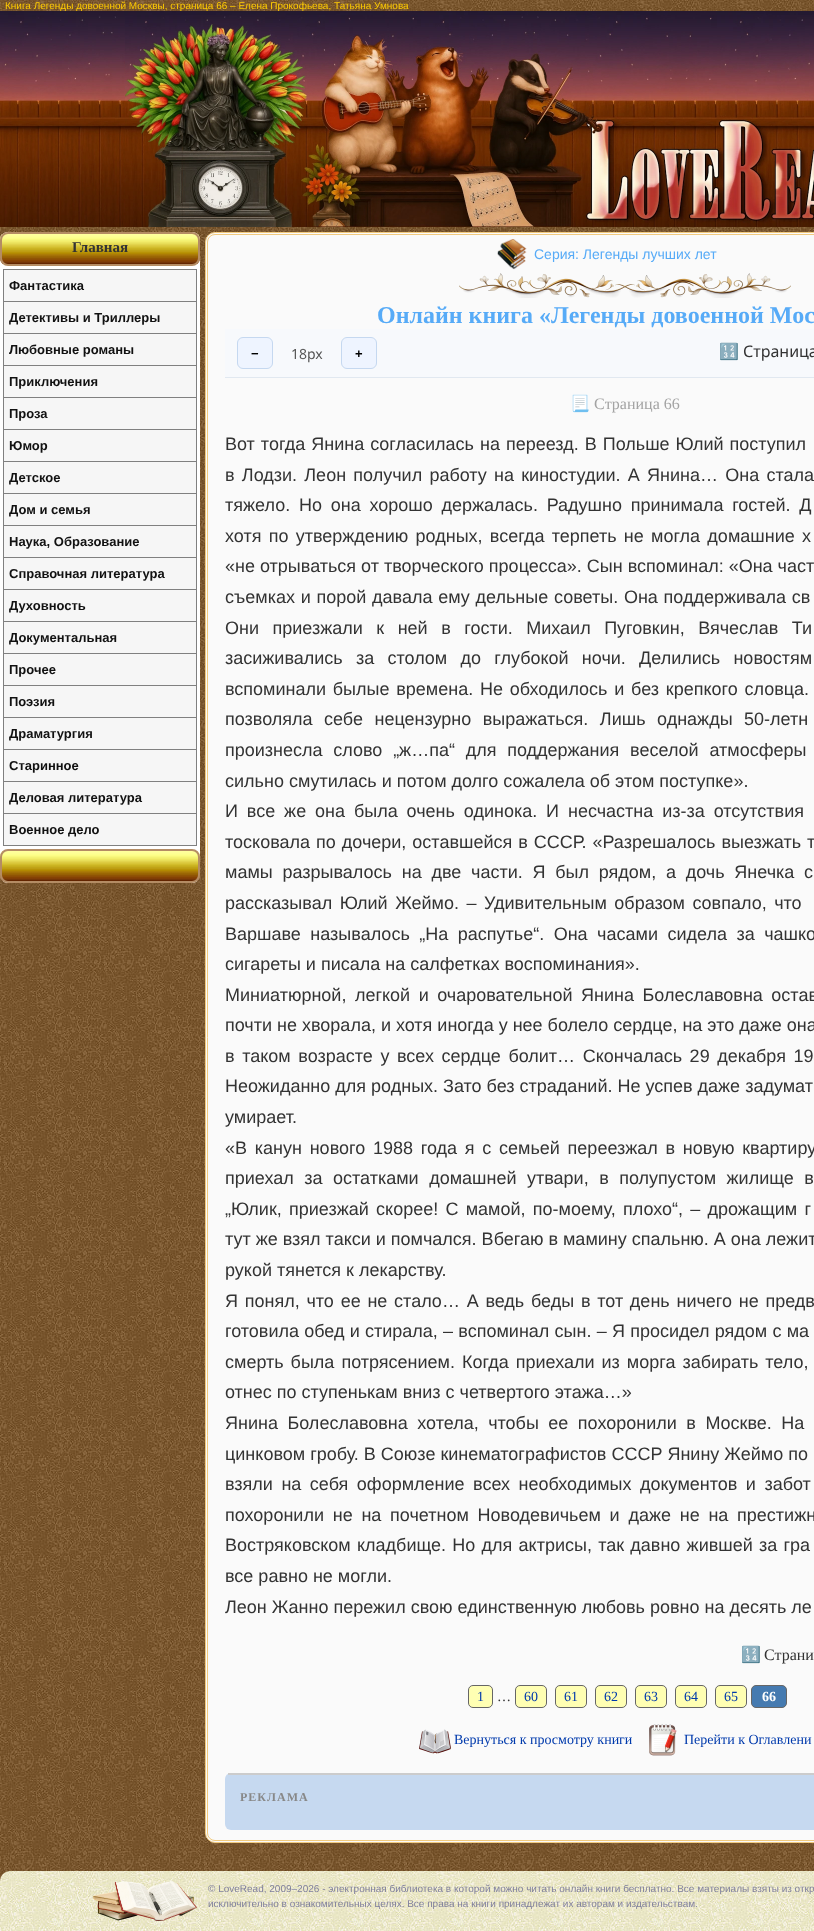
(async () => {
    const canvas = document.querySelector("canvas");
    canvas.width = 814;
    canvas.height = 1931;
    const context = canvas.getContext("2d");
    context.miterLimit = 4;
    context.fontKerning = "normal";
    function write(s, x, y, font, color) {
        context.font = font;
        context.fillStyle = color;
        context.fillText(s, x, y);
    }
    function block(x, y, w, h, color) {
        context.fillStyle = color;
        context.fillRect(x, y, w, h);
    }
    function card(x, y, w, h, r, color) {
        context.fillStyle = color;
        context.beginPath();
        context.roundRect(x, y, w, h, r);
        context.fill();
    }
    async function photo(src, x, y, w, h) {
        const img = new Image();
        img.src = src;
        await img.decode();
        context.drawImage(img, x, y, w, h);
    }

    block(0, 0, 814, 1931, "rgb(255, 255, 255)");
    await photo("media/1.png", 0, 0, 814, 1881);
    write("Книга Легенды довоенной Москвы, страница 66 – Елена Прокофьева, Татьяна Умнова", 5, 9, "10px Liberation Sans", "rgb(255, 204, 0)");
    await photo("media/2.png", 0, 11, 814, 216);
    await photo("media/3.png", 125, 15, 689, 212);
    card(0, 232, 200, 651, 8, "rgb(255, 255, 255)");
    await photo("media/4.png", 0, 234, 200, 30);
    context.beginPath();
    context.roundRect(1, 233, 198, 32, 7);
    context.strokeStyle = "rgb(180, 140, 100)";
    context.lineWidth = 2;
    context.stroke();
    write("Главная", 72, 252, "bold 15px Liberation Serif", "rgb(51, 51, 51)");
    block(3, 845, 194, 1, "rgb(128, 128, 128)");
    block(3, 269, 194, 1, "rgb(128, 128, 128)");
    block(196, 269, 1, 32, "rgb(128, 128, 128)");
    block(3, 269, 1, 32, "rgb(128, 128, 128)");
    block(4, 270, 192, 31, "rgb(246, 246, 246)");
    write("Фантастика", 9, 290, "bold 13px Liberation Sans", "rgb(17, 17, 17)");
    block(3, 301, 194, 1, "rgb(128, 128, 128)");
    block(196, 301, 1, 32, "rgb(128, 128, 128)");
    block(3, 301, 1, 32, "rgb(128, 128, 128)");
    block(4, 302, 192, 31, "rgb(246, 246, 246)");
    write("Детективы и Триллеры", 9, 322, "bold 13px Liberation Sans", "rgb(17, 17, 17)");
    block(3, 333, 194, 1, "rgb(128, 128, 128)");
    block(196, 333, 1, 32, "rgb(128, 128, 128)");
    block(3, 333, 1, 32, "rgb(128, 128, 128)");
    block(4, 334, 192, 31, "rgb(246, 246, 246)");
    write("Любовные романы", 9, 354, "bold 13px Liberation Sans", "rgb(17, 17, 17)");
    block(3, 365, 194, 1, "rgb(128, 128, 128)");
    block(196, 365, 1, 32, "rgb(128, 128, 128)");
    block(3, 365, 1, 32, "rgb(128, 128, 128)");
    block(4, 366, 192, 31, "rgb(246, 246, 246)");
    write("Приключения", 9, 386, "bold 13px Liberation Sans", "rgb(17, 17, 17)");
    block(3, 397, 194, 1, "rgb(128, 128, 128)");
    block(196, 397, 1, 32, "rgb(128, 128, 128)");
    block(3, 397, 1, 32, "rgb(128, 128, 128)");
    block(4, 398, 192, 31, "rgb(246, 246, 246)");
    write("Проза", 9, 418, "bold 13px Liberation Sans", "rgb(17, 17, 17)");
    block(3, 429, 194, 1, "rgb(128, 128, 128)");
    block(196, 429, 1, 32, "rgb(128, 128, 128)");
    block(3, 429, 1, 32, "rgb(128, 128, 128)");
    block(4, 430, 192, 31, "rgb(246, 246, 246)");
    write("Юмор", 9, 450, "bold 13px Liberation Sans", "rgb(17, 17, 17)");
    block(3, 461, 194, 1, "rgb(128, 128, 128)");
    block(196, 461, 1, 32, "rgb(128, 128, 128)");
    block(3, 461, 1, 32, "rgb(128, 128, 128)");
    block(4, 462, 192, 31, "rgb(246, 246, 246)");
    write("Детское", 9, 482, "bold 13px Liberation Sans", "rgb(17, 17, 17)");
    block(3, 493, 194, 1, "rgb(128, 128, 128)");
    block(196, 493, 1, 32, "rgb(128, 128, 128)");
    block(3, 493, 1, 32, "rgb(128, 128, 128)");
    block(4, 494, 192, 31, "rgb(246, 246, 246)");
    write("Дом и семья", 9, 514, "bold 13px Liberation Sans", "rgb(17, 17, 17)");
    block(3, 525, 194, 1, "rgb(128, 128, 128)");
    block(196, 525, 1, 32, "rgb(128, 128, 128)");
    block(3, 525, 1, 32, "rgb(128, 128, 128)");
    block(4, 526, 192, 31, "rgb(246, 246, 246)");
    write("Наука, Образование", 9, 546, "bold 13px Liberation Sans", "rgb(17, 17, 17)");
    block(3, 557, 194, 1, "rgb(128, 128, 128)");
    block(196, 557, 1, 32, "rgb(128, 128, 128)");
    block(3, 557, 1, 32, "rgb(128, 128, 128)");
    block(4, 558, 192, 31, "rgb(246, 246, 246)");
    write("Справочная литература", 9, 578, "bold 13px Liberation Sans", "rgb(17, 17, 17)");
    block(3, 589, 194, 1, "rgb(128, 128, 128)");
    block(196, 589, 1, 32, "rgb(128, 128, 128)");
    block(3, 589, 1, 32, "rgb(128, 128, 128)");
    block(4, 590, 192, 31, "rgb(246, 246, 246)");
    write("Духовность", 9, 610, "bold 13px Liberation Sans", "rgb(17, 17, 17)");
    block(3, 621, 194, 1, "rgb(128, 128, 128)");
    block(196, 621, 1, 32, "rgb(128, 128, 128)");
    block(3, 621, 1, 32, "rgb(128, 128, 128)");
    block(4, 622, 192, 31, "rgb(246, 246, 246)");
    write("Документальная", 9, 642, "bold 13px Liberation Sans", "rgb(17, 17, 17)");
    block(3, 653, 194, 1, "rgb(128, 128, 128)");
    block(196, 653, 1, 32, "rgb(128, 128, 128)");
    block(3, 653, 1, 32, "rgb(128, 128, 128)");
    block(4, 654, 192, 31, "rgb(246, 246, 246)");
    write("Прочее", 9, 674, "bold 13px Liberation Sans", "rgb(17, 17, 17)");
    block(3, 685, 194, 1, "rgb(128, 128, 128)");
    block(196, 685, 1, 32, "rgb(128, 128, 128)");
    block(3, 685, 1, 32, "rgb(128, 128, 128)");
    block(4, 686, 192, 31, "rgb(246, 246, 246)");
    write("Поэзия", 9, 706, "bold 13px Liberation Sans", "rgb(17, 17, 17)");
    block(3, 717, 194, 1, "rgb(128, 128, 128)");
    block(196, 717, 1, 32, "rgb(128, 128, 128)");
    block(3, 717, 1, 32, "rgb(128, 128, 128)");
    block(4, 718, 192, 31, "rgb(246, 246, 246)");
    write("Драматургия", 9, 738, "bold 13px Liberation Sans", "rgb(17, 17, 17)");
    block(3, 749, 194, 1, "rgb(128, 128, 128)");
    block(196, 749, 1, 32, "rgb(128, 128, 128)");
    block(3, 749, 1, 32, "rgb(128, 128, 128)");
    block(4, 750, 192, 31, "rgb(246, 246, 246)");
    write("Старинное", 9, 770, "bold 13px Liberation Sans", "rgb(17, 17, 17)");
    block(3, 781, 194, 1, "rgb(128, 128, 128)");
    block(196, 781, 1, 32, "rgb(128, 128, 128)");
    block(3, 781, 1, 32, "rgb(128, 128, 128)");
    block(4, 782, 192, 31, "rgb(246, 246, 246)");
    write("Деловая литература", 9, 802, "bold 13px Liberation Sans", "rgb(17, 17, 17)");
    block(3, 813, 194, 1, "rgb(128, 128, 128)");
    block(196, 813, 1, 32, "rgb(128, 128, 128)");
    block(3, 813, 1, 32, "rgb(128, 128, 128)");
    block(4, 814, 192, 31, "rgb(246, 246, 246)");
    write("Военное дело", 9, 834, "bold 13px Liberation Sans", "rgb(17, 17, 17)");
    await photo("media/5.png", 0, 851, 200, 30);
    context.beginPath();
    context.roundRect(1, 850, 198, 32, 7);
    context.stroke();
    context.fillStyle = "rgb(250, 250, 250)";
    context.beginPath();
    context.roundRect(205.5, 232.5, 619, 1610, 9.5);
    context.fill();
    context.strokeStyle = "rgb(241, 202, 127)";
    context.lineWidth = 1;
    context.stroke();
    context.beginPath();
    context.roundRect(207.5, 234.5, 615, 1606, 7.5);
    context.stroke();
    await photo("media/6.png", 497, 239, 30, 31);
    write("Серия: Легенды лучших лет", 534, 259, "14px Liberation Sans", "rgb(87, 171, 247)");
    await photo("media/7.png", 459, 273, 332, 25);
    write("Онлайн книга «Легенды довоенной Мос", 377, 323, "bold 24px Liberation Serif", "rgb(87, 171, 247)");
    block(225, 329, 589, 48, "rgb(247, 249, 252)");
    block(225, 377, 589, 1, "rgb(225, 232, 240)");
    context.fillStyle = "rgb(238, 244, 255)";
    context.beginPath();
    context.roundRect(237.5, 337.5, 35, 31, 5.5);
    context.fill();
    context.strokeStyle = "rgb(197, 216, 240)";
    context.stroke();
    write("−", 251, 358, "bold 13px Liberation Sans", "rgb(0, 0, 0)");
    write("18px", 291, 359, "14px Noto Sans", "rgb(85, 85, 85)");
    context.fillStyle = "rgb(238, 244, 255)";
    context.beginPath();
    context.roundRect(341.5, 337.5, 35, 31, 5.5);
    context.fill();
    context.stroke();
    write("+", 355, 358, "bold 13px Liberation Sans", "rgb(0, 0, 0)");
    write("🔢", 719, 357, "16px Noto Color Emoji", "rgb(51, 51, 51)");
    write("Страница", 743, 357, "16px Noto Sans", "rgb(51, 51, 51)");
    write("📃", 570, 409, "16px Noto Color Emoji", "rgb(163, 163, 163)");
    write("Cтраница 66", 594, 409, "16px Liberation Serif", "rgb(163, 163, 163)");
    context.wordSpacing = "1px";
    write("Вот тогда Янина согласилась на переезд. В Польше Юлий поступил", 225, 450, "18px Liberation Sans", "rgb(51, 51, 51)");
    context.wordSpacing = "2.25px";
    write("в Лодзи. Леон получил работу на киностудии. А Янина… Она стала", 225, 481, "18px Liberation Sans", "rgb(51, 51, 51)");
    context.wordSpacing = "3.75px";
    write("тяжело. Но она хорошо держалась. Радушно принимала гостей. Д", 225, 511, "18px Liberation Sans", "rgb(51, 51, 51)");
    context.wordSpacing = "2.25px";
    write("хотя по утверждению родных, всегда терпеть не могла домашние х", 225, 542, "18px Liberation Sans", "rgb(51, 51, 51)");
    context.wordSpacing = "0px";
    write("«не отрываться от творческого процесса». Сын вспоминал: «Она част", 225, 572, "18px Liberation Sans", "rgb(51, 51, 51)");
    context.wordSpacing = "0.75px";
    write("съемках и порой давала ему дельные советы. Она поддерживала св", 225, 603, "18px Liberation Sans", "rgb(51, 51, 51)");
    context.wordSpacing = "8.5px";
    write("Они приезжали к ней в гости. Михаил Пуговкин, Вячеслав Ти", 225, 634, "18px Liberation Sans", "rgb(51, 51, 51)");
    context.wordSpacing = "8.25px";
    write("засиживались за столом до глубокой ночи. Делились новостям", 225, 664, "18px Liberation Sans", "rgb(51, 51, 51)");
    context.wordSpacing = "1.75px";
    write("вспоминали былые времена. Не обходилось и без крепкого словца.", 225, 695, "18px Liberation Sans", "rgb(51, 51, 51)");
    context.wordSpacing = "6.5px";
    write("позволяла себе нецензурно выражаться. Лишь однажды 50-летн", 225, 725, "18px Liberation Sans", "rgb(51, 51, 51)");
    context.wordSpacing = "5.75px";
    write("произнесла слово „ж…па“ для поддержания веселой атмосферы", 225, 756, "18px Liberation Sans", "rgb(51, 51, 51)");
    context.wordSpacing = "0px";
    write("сильно смутилась и потом долго сожалела об этом поступке».", 225, 787, "18px Liberation Sans", "rgb(51, 51, 51)");
    context.wordSpacing = "3.9px";
    write("И все же она была очень одинока. И несчастна из-за отсутствия", 225, 817, "18px Liberation Sans", "rgb(51, 51, 51)");
    context.wordSpacing = "1px";
    write("тосковала по дочери, оставшейся в СССР. «Разрешалось выезжать т", 225, 848, "18px Liberation Sans", "rgb(51, 51, 51)");
    context.wordSpacing = "4.75px";
    write("мамы разрывалось на две части. Я был рядом, а дочь Янечка с", 225, 878, "18px Liberation Sans", "rgb(51, 51, 51)");
    context.wordSpacing = "2.5px";
    write("рассказывал Юлий Жеймо. – Удивительным образом совпало, что", 225, 909, "18px Liberation Sans", "rgb(51, 51, 51)");
    context.wordSpacing = "4.5px";
    write("Варшаве называлось „На распутье“. Она часами сидела за чашко", 225, 940, "18px Liberation Sans", "rgb(51, 51, 51)");
    context.wordSpacing = "0px";
    write("сигареты и писала на салфетках воспоминания».", 225, 970, "18px Liberation Sans", "rgb(51, 51, 51)");
    context.wordSpacing = "3.5px";
    write("Миниатюрной, легкой и очаровательной Янина Болеславовна остав", 225, 1001, "18px Liberation Sans", "rgb(51, 51, 51)");
    context.wordSpacing = "0px";
    write("почти не хворала, и хотя иногда у нее болело сердце, на это даже она", 225, 1031, "18px Liberation Sans", "rgb(51, 51, 51)");
    context.wordSpacing = "2.6px";
    write("в таком возрасте у всех сердце болит… Скончалась 29 декабря 19", 225, 1062, "18px Liberation Sans", "rgb(51, 51, 51)");
    context.wordSpacing = "0px";
    write("Неожиданно для родных. Зато без страданий. Не успев даже задумат", 225, 1092, "18px Liberation Sans", "rgb(51, 51, 51)");
    write("умирает.", 225, 1123, "18px Liberation Sans", "rgb(51, 51, 51)");
    context.wordSpacing = "2.75px";
    write("«В канун нового 1988 года я с семьей переезжал в новую квартиру", 225, 1154, "18px Liberation Sans", "rgb(51, 51, 51)");
    context.wordSpacing = "5.5px";
    write("приехал за остатками домашней утвари, в полупустом жилище в", 225, 1184, "18px Liberation Sans", "rgb(51, 51, 51)");
    context.wordSpacing = "2.25px";
    write("„Юлик, приезжай скорее! С мамой, по-моему, плохо“, – дрожащим г", 225, 1215, "18px Liberation Sans", "rgb(51, 51, 51)");
    context.wordSpacing = "0px";
    write("тут же взял такси и помчался. Вбегаю в мамину спальню. А она лежит", 225, 1245, "18px Liberation Sans", "rgb(51, 51, 51)");
    write("рукой тянется к лекарству.", 225, 1276, "18px Liberation Sans", "rgb(51, 51, 51)");
    context.wordSpacing = "1.75px";
    write("Я понял, что ее не стало… А ведь беды в тот день ничего не предв", 225, 1307, "18px Liberation Sans", "rgb(51, 51, 51)");
    context.wordSpacing = "0.25px";
    write("готовила обед и стирала, – вспоминал сын. – Я просидел рядом с ма", 225, 1337, "18px Liberation Sans", "rgb(51, 51, 51)");
    context.wordSpacing = "2px";
    write("смерть была потрясением. Когда приехали из морга забирать тело,", 225, 1368, "18px Liberation Sans", "rgb(51, 51, 51)");
    context.wordSpacing = "0px";
    write("отнес по ступенькам вниз с четвертого этажа…»", 225, 1398, "18px Liberation Sans", "rgb(51, 51, 51)");
    context.wordSpacing = "4.5px";
    write("Янина Болеславовна хотела, чтобы ее похоронили в Москве. На", 225, 1429, "18px Liberation Sans", "rgb(51, 51, 51)");
    context.wordSpacing = "0px";
    write("цинковом гробу. В Союзе кинематографистов СССР Янину Жеймо по", 225, 1460, "18px Liberation Sans", "rgb(51, 51, 51)");
    context.wordSpacing = "3.5px";
    write("взяли на себя оформление всех необходимых документов и забот", 225, 1490, "18px Liberation Sans", "rgb(51, 51, 51)");
    context.wordSpacing = "3.75px";
    write("похоронили не на почетном Новодевичьем и даже не на престижн", 225, 1521, "18px Liberation Sans", "rgb(51, 51, 51)");
    context.wordSpacing = "1.25px";
    write("Востряковском кладбище. Но для актрисы, так давно жившей за гра", 225, 1551, "18px Liberation Sans", "rgb(51, 51, 51)");
    context.wordSpacing = "0px";
    write("все равно не могли.", 225, 1582, "18px Liberation Sans", "rgb(51, 51, 51)");
    write("Леон Жанно пережил свою единственную любовь ровно на десять ле", 225, 1613, "18px Liberation Sans", "rgb(51, 51, 51)");
    write("🔢", 741, 1660, "16px Noto Color Emoji", "rgb(51, 51, 51)");
    write("Страни", 764, 1660, "16px Liberation Serif", "rgb(51, 51, 51)");
    context.fillStyle = "rgb(255, 255, 179)";
    context.beginPath();
    context.roundRect(468.5, 1685.5, 24, 22, 4.5);
    context.fill();
    context.strokeStyle = "rgb(102, 102, 102)";
    context.stroke();
    write("1", 477, 1701, "14px Liberation Serif", "rgb(0, 58, 172)");
    write("…", 497, 1701, "14px Liberation Serif", "rgb(51, 51, 51)");
    context.fillStyle = "rgb(255, 255, 179)";
    context.beginPath();
    context.roundRect(515.5, 1685.5, 31, 22, 4.5);
    context.fill();
    context.stroke();
    write("60", 524, 1701, "14px Liberation Serif", "rgb(0, 58, 172)");
    context.fillStyle = "rgb(255, 255, 179)";
    context.beginPath();
    context.roundRect(555.5, 1685.5, 31, 22, 4.5);
    context.fill();
    context.stroke();
    write("61", 564, 1701, "14px Liberation Serif", "rgb(0, 58, 172)");
    context.fillStyle = "rgb(255, 255, 179)";
    context.beginPath();
    context.roundRect(595.5, 1685.5, 31, 22, 4.5);
    context.fill();
    context.stroke();
    write("62", 604, 1701, "14px Liberation Serif", "rgb(0, 58, 172)");
    context.fillStyle = "rgb(255, 255, 179)";
    context.beginPath();
    context.roundRect(635.5, 1685.5, 31, 22, 4.5);
    context.fill();
    context.stroke();
    write("63", 644, 1701, "14px Liberation Serif", "rgb(0, 58, 172)");
    context.fillStyle = "rgb(255, 255, 179)";
    context.beginPath();
    context.roundRect(675.5, 1685.5, 31, 22, 4.5);
    context.fill();
    context.stroke();
    write("64", 684, 1701, "14px Liberation Serif", "rgb(0, 58, 172)");
    context.fillStyle = "rgb(255, 255, 179)";
    context.beginPath();
    context.roundRect(715.5, 1685.5, 31, 22, 4.5);
    context.fill();
    context.stroke();
    write("65", 724, 1701, "14px Liberation Serif", "rgb(0, 58, 172)");
    context.fillStyle = "rgb(69, 122, 176)";
    context.beginPath();
    context.roundRect(751.5, 1685.5, 35, 22, 4.5);
    context.fill();
    context.stroke();
    write("66", 762, 1701, "bold 14px Liberation Serif", "rgb(255, 255, 255)");
    await photo("media/8.png", 419, 1729, 32, 25);
    write("Вернуться к просмотру книги", 454, 1744, "14px Liberation Serif", "rgb(0, 58, 172)");
    await photo("media/9.png", 649, 1724, 28, 32);
    write("Перейти к Оглавлени", 684, 1744, "14px Liberation Serif", "rgb(0, 58, 172)");
    card(225, 1773, 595, 57, 6, "rgb(198, 217, 240)");
    block(228, 1773, 586, 2, "rgb(204, 204, 204)");
    context.letterSpacing = "1px";
    write("РЕКЛАМА", 240, 1801, "bold 12px Liberation Serif", "rgb(136, 136, 136)");
    await photo("media/10.png", 0, 1871, 814, 60);
    await photo("media/11.png", 93, 1881, 104, 40);
    context.letterSpacing = "0px";
    write("© LoveRead, 2009–2026 - электронная библиотека в которой можно читать онлайн книги бесплатно. Все материалы взяты из откр", 208, 1892, "10px Liberation Sans", "rgb(127, 127, 156)");
    write("исключительно в ознакомительных целях. Все права на книги принадлежат их авторам и издательствам.", 208, 1907, "10px Liberation Sans", "rgb(127, 127, 156)");
})();
